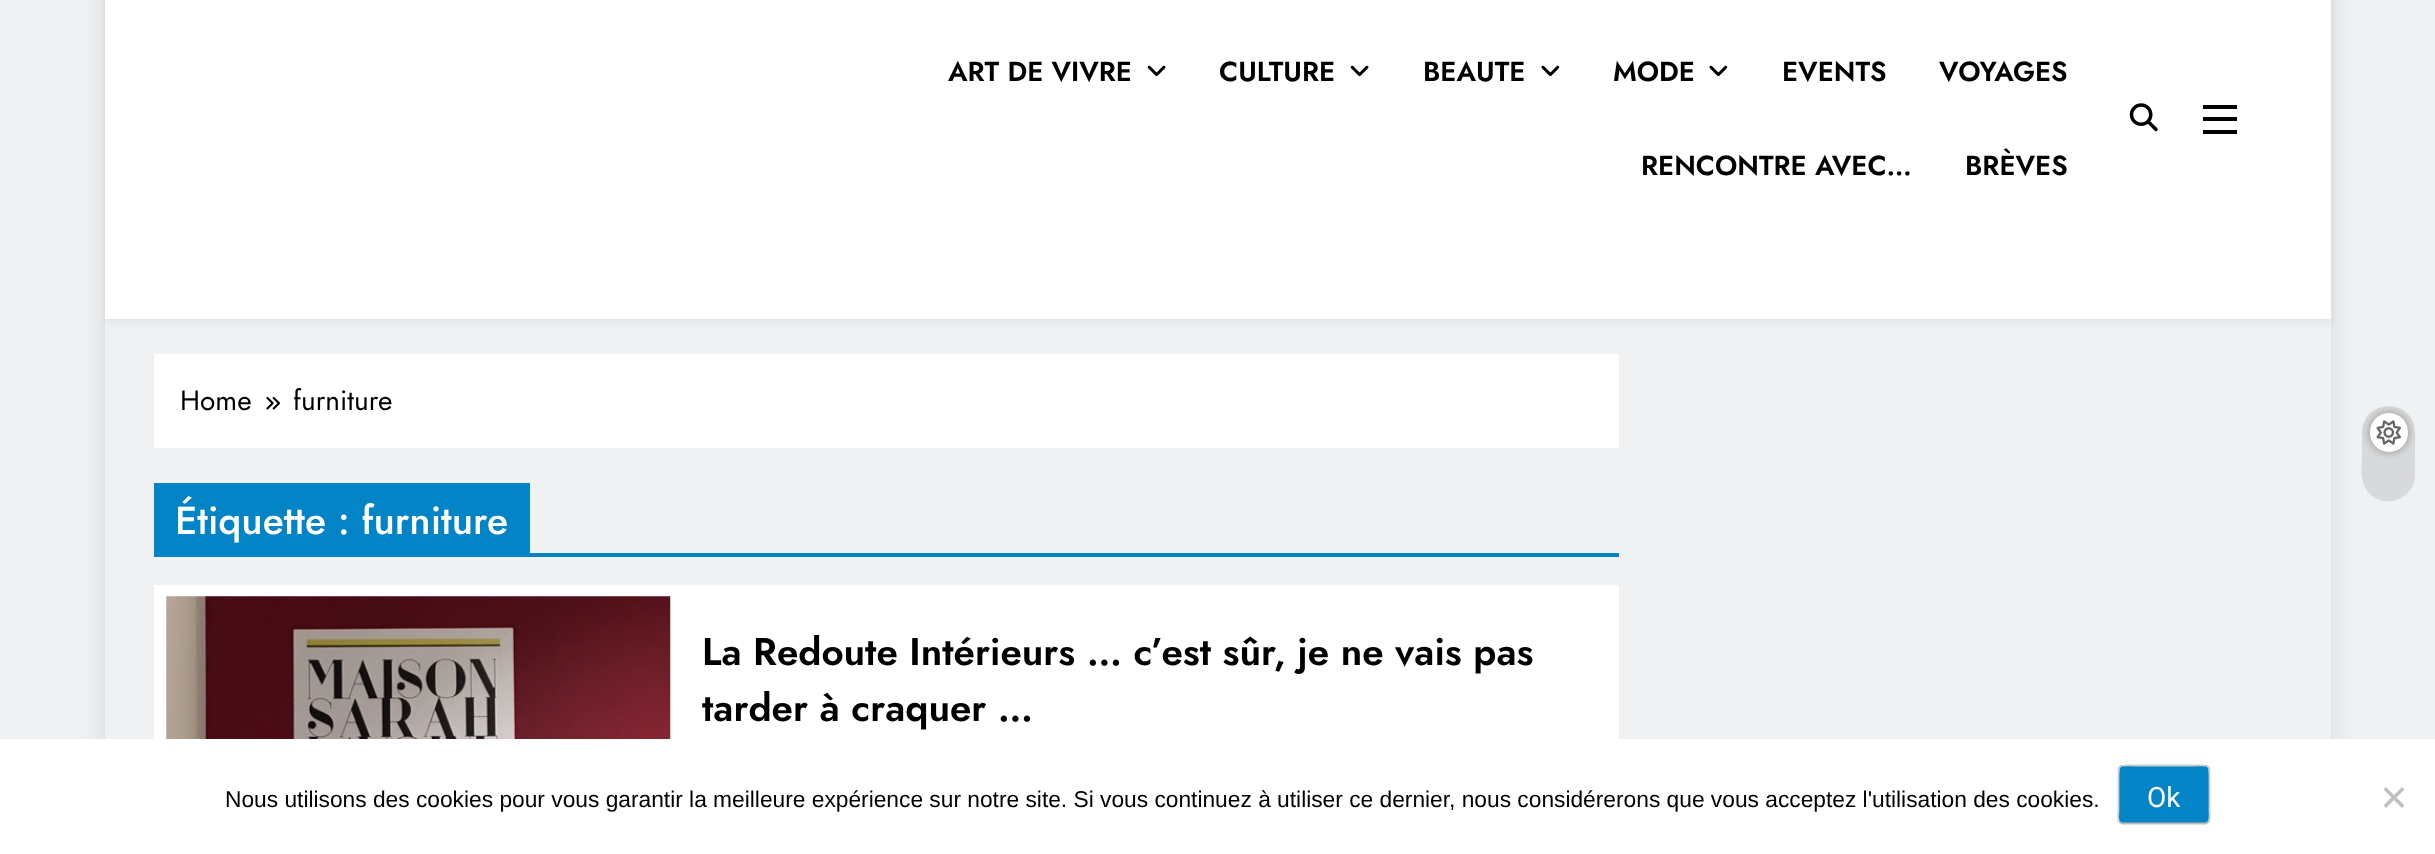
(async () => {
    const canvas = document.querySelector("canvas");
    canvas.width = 2435;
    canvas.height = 854;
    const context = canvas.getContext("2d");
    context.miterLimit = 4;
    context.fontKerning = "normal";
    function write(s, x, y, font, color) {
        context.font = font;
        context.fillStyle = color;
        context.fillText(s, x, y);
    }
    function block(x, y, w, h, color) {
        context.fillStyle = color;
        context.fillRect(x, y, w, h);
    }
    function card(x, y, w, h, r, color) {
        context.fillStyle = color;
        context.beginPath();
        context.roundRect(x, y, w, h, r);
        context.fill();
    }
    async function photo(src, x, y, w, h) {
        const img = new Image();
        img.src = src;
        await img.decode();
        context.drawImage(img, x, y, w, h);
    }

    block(0, 0, 2435, 854, "rgb(240, 241, 242)");
    context.save();
    context.beginPath();
    context.moveTo(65, 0);
    context.lineTo(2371, 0);
    context.lineTo(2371, 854);
    context.lineTo(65, 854);
    context.closePath();
    context.moveTo(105, -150);
    context.lineTo(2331, -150);
    context.lineTo(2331, 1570);
    context.lineTo(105, 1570);
    context.closePath();
    context.clip("evenodd");
    context.fillStyle = "rgba(0, 0, 0, 0.1)";
    context.filter = "blur(13px)";
    context.beginPath();
    context.rect(105, -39, 2226, 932);
    context.fill();
    context.filter = "none";
    context.restore();
    context.fillStyle = "rgba(0, 0, 0, 0.05)";
    context.filter = "blur(3.5px)";
    context.beginPath();
    context.rect(105, -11, 2226, 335);
    context.fill();
    context.filter = "none";
    block(105, 0, 2226, 319, "rgb(255, 255, 255)");
    write("ART DE VIVRE", 948, 81, "600 27.5px Jost", "rgb(0, 0, 0)");
    await photo("media/1.png", 1147, 65, 19, 12);
    write("CULTURE", 1219, 81, "600 27.5px Jost", "rgb(0, 0, 0)");
    await photo("media/1.png", 1350, 65, 19, 12);
    write("BEAUTE", 1423, 81, "600 27.5px Jost", "rgb(0, 0, 0)");
    await photo("media/2.png", 1541, 65, 19, 12);
    write("MODE", 1613, 81, "600 27.5px Jost", "rgb(0, 0, 0)");
    await photo("media/2.png", 1709, 65, 19, 12);
    write("EVENTS", 1782, 81, "600 27.5px Jost", "rgb(0, 0, 0)");
    write("VOYAGES", 1939, 81, "600 27.5px Jost", "rgb(0, 0, 0)");
    write("RENCONTRE AVEC…", 1641, 175, "600 27.5px Jost", "rgb(0, 0, 0)");
    write("BRÈVES", 1965, 175, "600 27.5px Jost", "rgb(0, 0, 0)");
    await photo("media/3.png", 2129, 103, 29, 29);
    block(2203, 105, 34, 4, "rgb(0, 0, 0)");
    block(2203, 117, 34, 4, "rgb(0, 0, 0)");
    block(2203, 130, 34, 4, "rgb(0, 0, 0)");
    context.fillStyle = "rgb(216, 217, 218)";
    context.beginPath();
    context.moveTo(2415, 433);
    context.lineTo(2415, 475);
    context.bezierCurveTo(2414, 504, 2375, 512, 2364, 485);
    context.bezierCurveTo(2360, 476, 2362, 463, 2362, 454);
    context.lineTo(2362, 433);
    context.bezierCurveTo(2363, 397, 2415, 398, 2415, 433);
    context.closePath();
    context.fill();
    context.fillStyle = "rgba(0, 0, 0, 0.35)";
    context.filter = "blur(4.5px)";
    context.beginPath();
    context.roundRect(2370, 413, 38, 39, 19);
    context.fill();
    context.filter = "none";
    card(2370, 413, 38, 39, 19, "rgb(255, 255, 255)");
    await photo("media/4.png", 2376, 420, 25, 25);
    block(154, 354, 1465, 94, "rgb(255, 255, 255)");
    write("Home", 180, 410, "28px Jost", "rgb(0, 0, 0)");
    await photo("media/5.png", 266, 396, 14, 14);
    write("furniture", 293, 410, "28px Jost", "rgb(0, 0, 0)");
    block(530, 553, 1089, 4, "rgb(2, 132, 199)");
    block(154, 483, 376, 74, "rgb(2, 132, 199)");
    write("Étiquette : furniture", 175, 534, "500 39.1px Jost", "rgb(255, 255, 255)");
    block(154, 585, 1465, 154, "rgb(255, 255, 255)");
    await photo("media/6.png", 166, 596, 505, 143);
    write("La Redoute Intérieurs … c’est sûr, je ne vais pas", 702, 665, "600 38.5px Jost", "rgb(0, 0, 0)");
    write("tarder à craquer …", 702, 721, "600 38.5px Jost", "rgb(0, 0, 0)");
    block(0, 739, 2435, 115, "rgb(255, 255, 255)");
    write("Nous utilisons des cookies pour vous garantir la meilleure expérience sur notre site. Si vous continuez à utiliser ce dernier, nous considérerons que vous acceptez l'utilisation des cookies.", 225, 807, "22.75px Liberation Sans", "rgb(0, 0, 0)");
    card(2118, 765, 92, 59, 5, "rgb(2, 132, 199)");
    context.beginPath();
    context.moveTo(2208, 822);
    context.lineTo(2205.5, 823.5);
    context.lineTo(2122.5, 823.5);
    context.lineTo(2119.5, 822);
    context.strokeStyle = "rgb(187, 187, 187)";
    context.lineWidth = 1.8;
    context.stroke();
    context.beginPath();
    context.moveTo(2119.5, 822);
    context.bezierCurveTo(2117, 819.5, 2118.5, 813, 2118.5, 811);
    context.lineTo(2118.5, 778);
    context.bezierCurveTo(2118.5, 762.5, 2119, 765.5, 2136.5, 765.5);
    context.lineTo(2191.5, 765.5);
    context.bezierCurveTo(2209, 765.5, 2209.5, 762.5, 2209.5, 778);
    context.lineTo(2209.5, 811);
    context.bezierCurveTo(2209.5, 813, 2210.5, 819.5, 2208, 822);
    context.strokeStyle = "rgb(204, 204, 204)";
    context.stroke();
    write("Ok", 2147, 807, "28px Roboto", "rgb(255, 255, 255)");
    context.fillStyle = "rgb(192, 192, 192)";
    context.beginPath();
    context.moveTo(2402, 787);
    context.lineTo(2404.5, 789.5);
    context.lineTo(2386, 808);
    context.lineTo(2383.5, 805.5);
    context.closePath();
    context.fill();
    context.beginPath();
    context.moveTo(2383.5, 789.5);
    context.lineTo(2386, 787);
    context.lineTo(2404.5, 805.5);
    context.lineTo(2402, 808);
    context.closePath();
    context.fill();
})();
